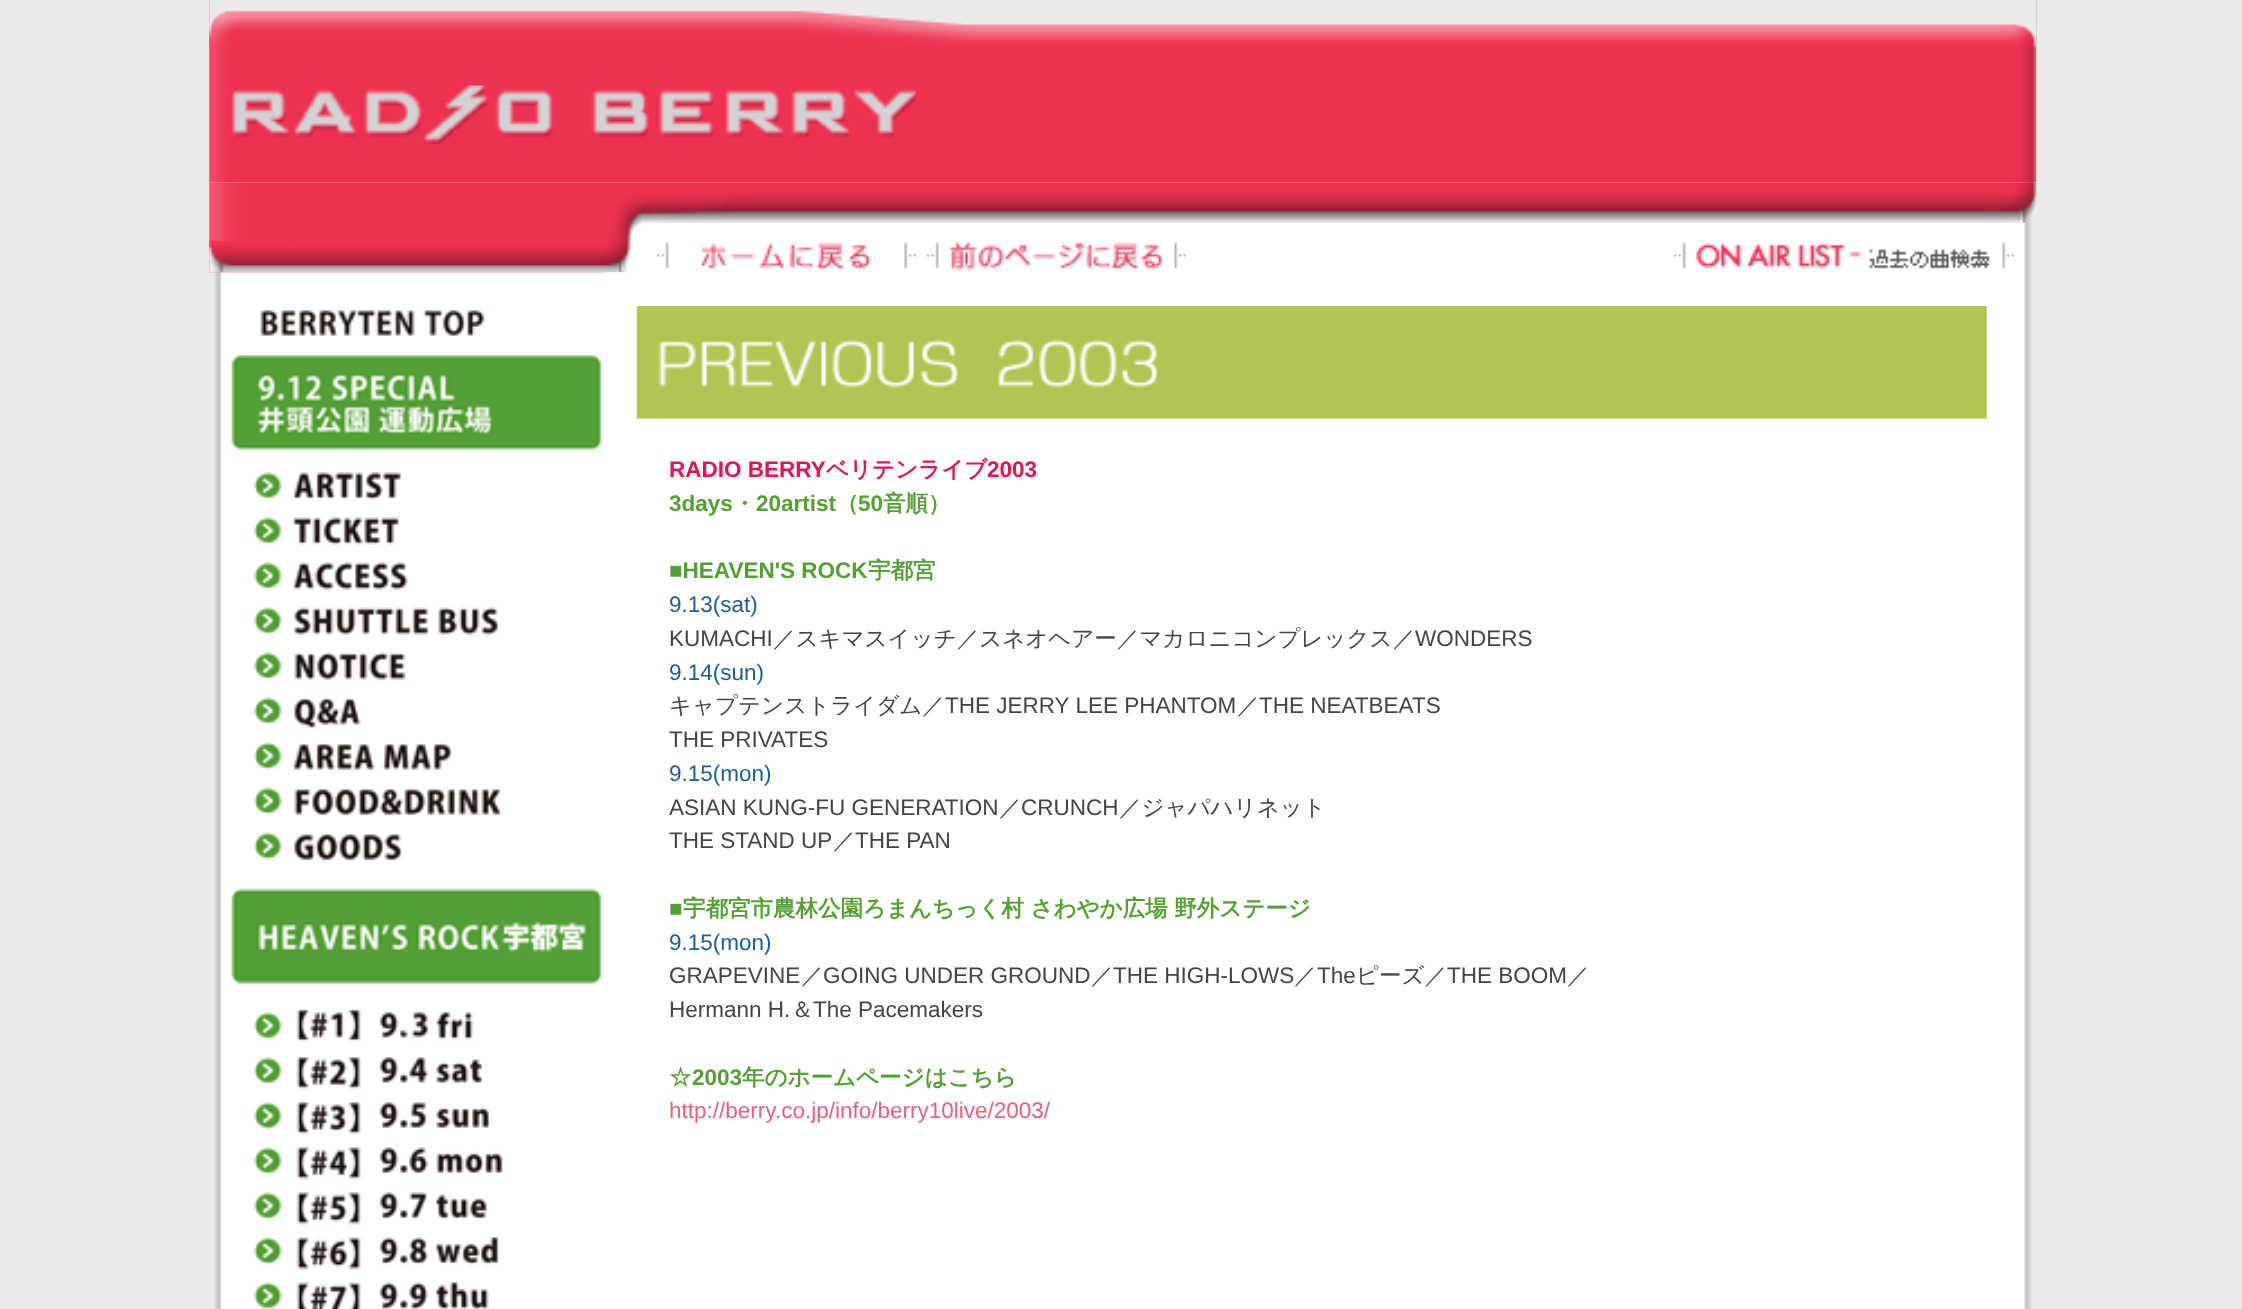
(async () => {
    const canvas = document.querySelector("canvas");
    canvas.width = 2242;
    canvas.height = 1309;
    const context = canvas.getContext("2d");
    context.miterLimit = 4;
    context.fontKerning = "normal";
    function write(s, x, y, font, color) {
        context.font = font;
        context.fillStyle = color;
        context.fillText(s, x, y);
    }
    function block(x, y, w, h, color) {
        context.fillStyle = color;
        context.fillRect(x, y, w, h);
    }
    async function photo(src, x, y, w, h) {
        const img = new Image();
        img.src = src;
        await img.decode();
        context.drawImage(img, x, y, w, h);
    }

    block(0, 0, 2242, 1309, "rgb(234, 234, 234)");
    await photo("media/1.png", 214, 182, 1818, 1127);
    await photo("media/2.png", 209, 0, 1828, 183);
    await photo("media/3.png", 209, 0, 1828, 48);
    await photo("media/4.png", 231, 85, 685, 59);
    await photo("media/5.png", 209, 182, 394, 52);
    await photo("media/6.png", 603, 182, 54, 91);
    await photo("media/7.png", 657, 182, 1380, 41);
    await photo("media/8.png", 209, 234, 394, 39);
    await photo("media/9.png", 209, 240, 394, 33);
    await photo("media/10.png", 657, 242, 259, 29);
    await photo("media/11.png", 927, 242, 259, 29);
    await photo("media/12.png", 1674, 242, 340, 27);
    await photo("media/13.png", 260, 310, 225, 26);
    await photo("media/14.png", 231, 355, 371, 96);
    await photo("media/15.png", 253, 472, 149, 28);
    await photo("media/16.png", 253, 517, 146, 28);
    await photo("media/17.png", 253, 562, 155, 29);
    await photo("media/18.png", 253, 607, 246, 29);
    await photo("media/19.png", 253, 652, 153, 29);
    await photo("media/20.png", 253, 697, 108, 33);
    await photo("media/21.png", 253, 742, 200, 29);
    await photo("media/22.png", 253, 787, 249, 29);
    await photo("media/23.png", 253, 832, 150, 29);
    await photo("media/24.png", 231, 888, 371, 96);
    await photo("media/25.png", 253, 1009, 221, 33);
    await photo("media/26.png", 253, 1057, 230, 33);
    await photo("media/27.png", 253, 1102, 238, 33);
    await photo("media/28.png", 253, 1147, 250, 33);
    await photo("media/29.png", 253, 1192, 235, 33);
    await photo("media/30.png", 253, 1237, 247, 33);
    await photo("media/31.png", 253, 1282, 236, 27);
    await photo("media/32.png", 636, 306, 1351, 113);
    write("RADIO BERRY", 669, 477, "bold 22.5px Liberation Sans", "rgb(230, 19, 79)");
    write("ベリテンライブ", 826, 477, "bold 22.5px WenQuanYi Zen Hei", "rgb(230, 19, 79)");
    write("2003", 987, 477, "bold 22.5px Liberation Sans", "rgb(230, 19, 79)");
    write("3days", 669, 511, "bold 22.5px Liberation Sans", "rgb(85, 159, 52)");
    write("・", 733, 511, "bold 22.5px WenQuanYi Zen Hei", "rgb(85, 159, 52)");
    write("20artist", 756, 511, "bold 22.5px Liberation Sans", "rgb(85, 159, 52)");
    write("（", 836, 511, "bold 22.5px WenQuanYi Zen Hei", "rgb(85, 159, 52)");
    write("50", 858, 511, "bold 22.5px Liberation Sans", "rgb(85, 159, 52)");
    write("音順）", 883, 511, "bold 22.5px WenQuanYi Zen Hei", "rgb(85, 159, 52)");
    write("■HEAVEN'S ROCK", 669, 578, "bold 22.5px Liberation Sans", "rgb(85, 159, 52)");
    write("宇都宮", 868, 578, "bold 22.5px WenQuanYi Zen Hei", "rgb(85, 159, 52)");
    write("9.13(sat)", 669, 612, "22.5px Liberation Sans", "rgb(30, 92, 151)");
    write("KUMACHI", 669, 646, "22.5px Liberation Sans", "rgb(68, 68, 68)");
    write("／スキマスイッチ／スネオヘアー／マカロニコンプレックス／", 773, 646, "500 22.5px WenQuanYi Zen Hei", "rgb(68, 68, 68)");
    write("WONDERS", 1415, 646, "22.5px Liberation Sans", "rgb(68, 68, 68)");
    write("9.14(sun)", 669, 680, "22.5px Liberation Sans", "rgb(30, 92, 151)");
    write("キャプテンストライダム／", 669, 713, "500 22.5px WenQuanYi Zen Hei", "rgb(68, 68, 68)");
    write("THE JERRY LEE PHANTOM", 945, 713, "22.5px Liberation Sans", "rgb(68, 68, 68)");
    write("／", 1237, 713, "500 22.5px WenQuanYi Zen Hei", "rgb(68, 68, 68)");
    write("THE NEATBEATS", 1259, 713, "22.5px Liberation Sans", "rgb(68, 68, 68)");
    write("THE PRIVATES", 669, 747, "22.5px Liberation Sans", "rgb(68, 68, 68)");
    write("9.15(mon)", 669, 781, "22.5px Liberation Sans", "rgb(30, 92, 151)");
    write("ASIAN KUNG-FU GENERATION", 669, 815, "22.5px Liberation Sans", "rgb(68, 68, 68)");
    write("／", 999, 815, "500 22.5px WenQuanYi Zen Hei", "rgb(68, 68, 68)");
    write("CRUNCH", 1021, 815, "22.5px Liberation Sans", "rgb(68, 68, 68)");
    write("／ジャパハリネット", 1119, 815, "500 22.5px WenQuanYi Zen Hei", "rgb(68, 68, 68)");
    write("THE STAND UP", 669, 848, "22.5px Liberation Sans", "rgb(68, 68, 68)");
    write("／", 833, 848, "500 22.5px WenQuanYi Zen Hei", "rgb(68, 68, 68)");
    write("THE PAN", 855, 848, "22.5px Liberation Sans", "rgb(68, 68, 68)");
    write("■", 669, 916, "bold 22.5px Liberation Sans", "rgb(85, 159, 52)");
    write("宇都宮市農林公園ろまんちっく村 さわやか広場 野外ステージ", 683, 916, "bold 22.5px WenQuanYi Zen Hei", "rgb(85, 159, 52)");
    write("9.15(mon)", 669, 950, "22.5px Liberation Sans", "rgb(30, 92, 151)");
    write("GRAPEVINE", 669, 983, "22.5px Liberation Sans", "rgb(68, 68, 68)");
    write("／", 801, 983, "500 22.5px WenQuanYi Zen Hei", "rgb(68, 68, 68)");
    write("GOING UNDER GROUND", 823, 983, "22.5px Liberation Sans", "rgb(68, 68, 68)");
    write("／", 1091, 983, "500 22.5px WenQuanYi Zen Hei", "rgb(68, 68, 68)");
    write("THE HIGH-LOWS", 1113, 983, "22.5px Liberation Sans", "rgb(68, 68, 68)");
    write("／", 1294, 983, "500 22.5px WenQuanYi Zen Hei", "rgb(68, 68, 68)");
    write("The", 1317, 983, "22.5px Liberation Sans", "rgb(68, 68, 68)");
    write("ピーズ／", 1356, 983, "500 22.5px WenQuanYi Zen Hei", "rgb(68, 68, 68)");
    write("THE BOOM", 1447, 983, "22.5px Liberation Sans", "rgb(68, 68, 68)");
    write("／", 1567, 983, "500 22.5px WenQuanYi Zen Hei", "rgb(68, 68, 68)");
    write("Hermann H.", 669, 1017, "22.5px Liberation Sans", "rgb(68, 68, 68)");
    write("＆", 791, 1017, "500 22.5px WenQuanYi Zen Hei", "rgb(68, 68, 68)");
    write("The Pacemakers", 813, 1017, "22.5px Liberation Sans", "rgb(68, 68, 68)");
    write("☆", 669, 1085, "bold 22.5px WenQuanYi Zen Hei", "rgb(85, 159, 52)");
    write("2003", 692, 1085, "bold 22.5px Liberation Sans", "rgb(85, 159, 52)");
    write("年のホームページはこちら", 742, 1085, "bold 22.5px WenQuanYi Zen Hei", "rgb(85, 159, 52)");
    write("http://berry.co.jp/info/berry10live/2003/", 669, 1118, "22.5px Liberation Sans", "rgb(237, 96, 122)");
})();
